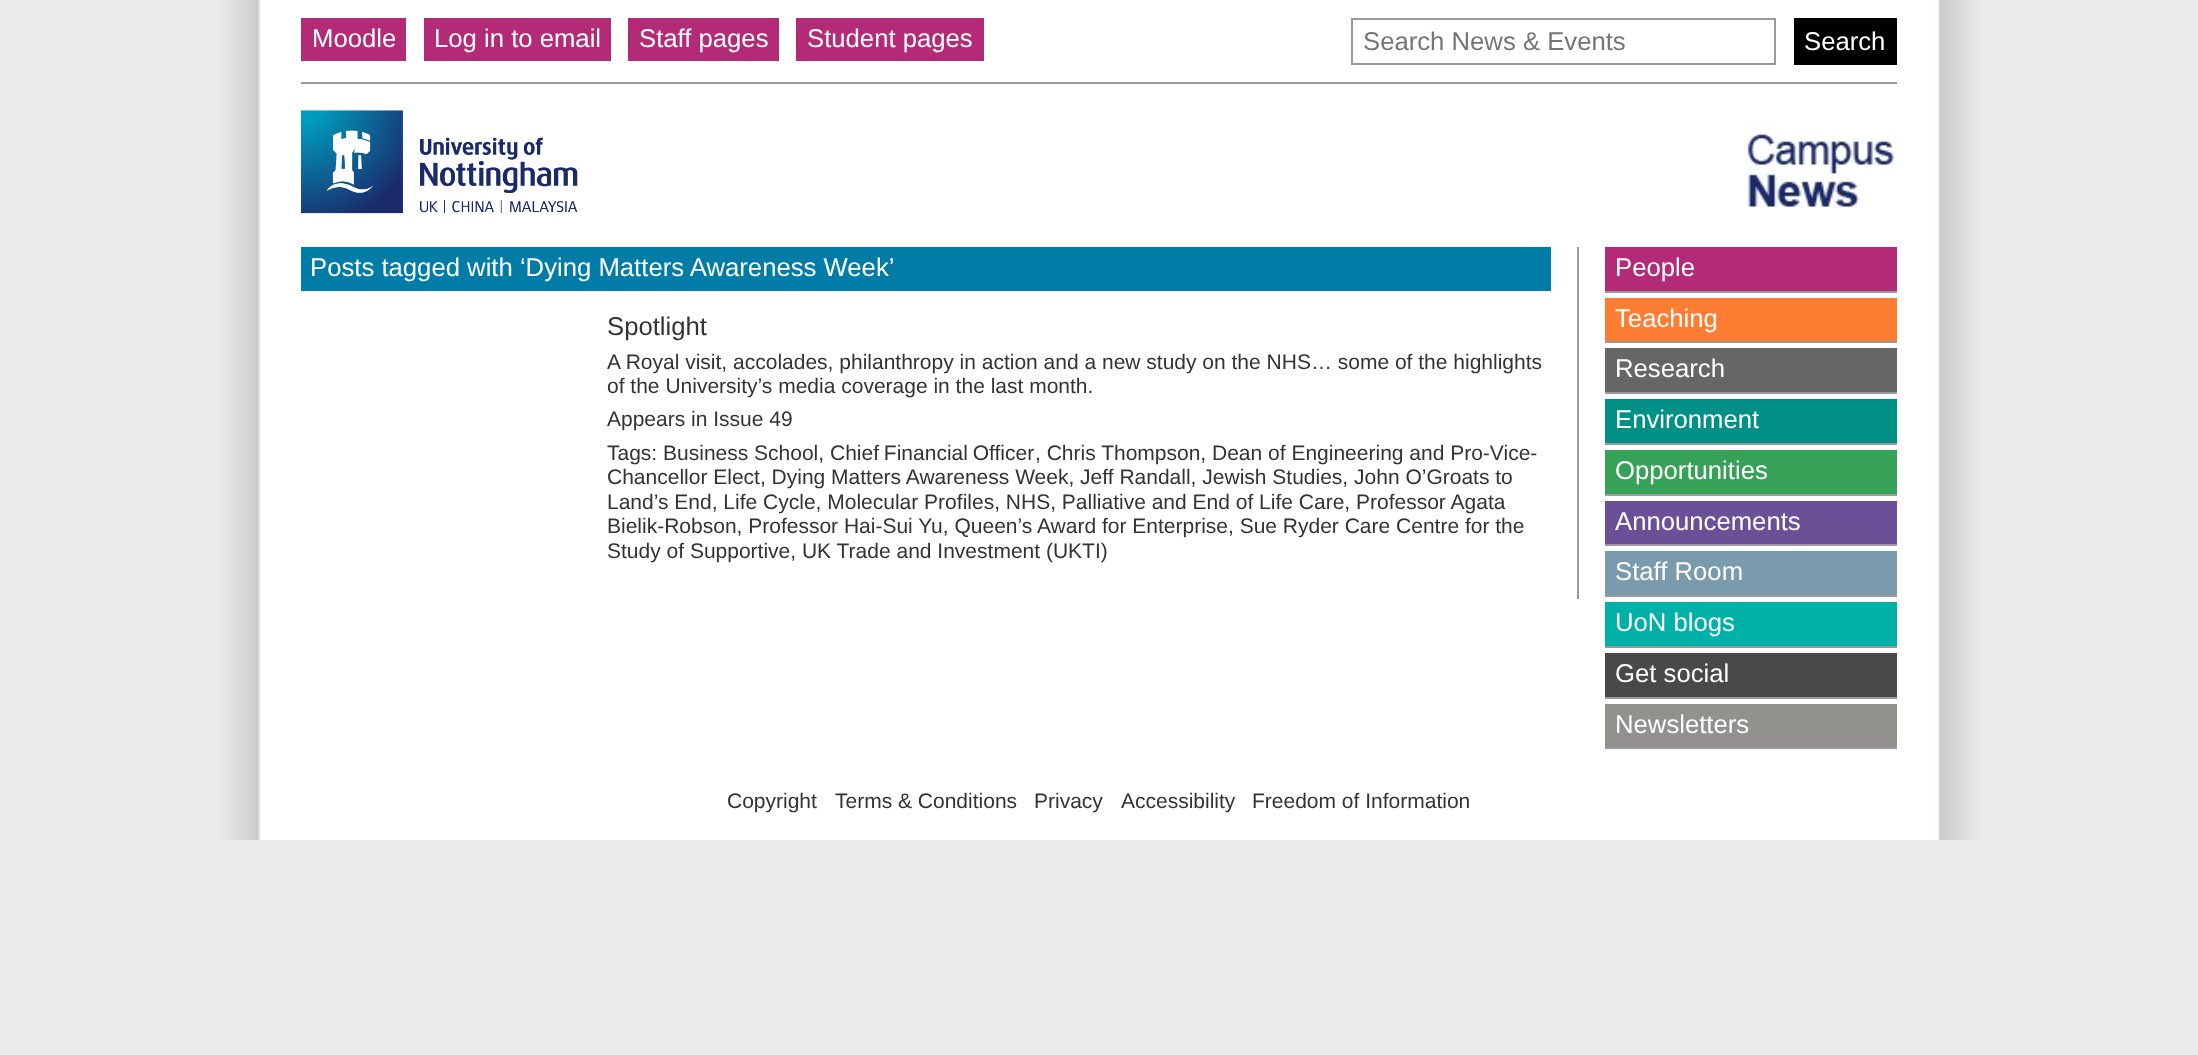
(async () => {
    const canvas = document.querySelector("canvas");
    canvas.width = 2198;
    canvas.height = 1055;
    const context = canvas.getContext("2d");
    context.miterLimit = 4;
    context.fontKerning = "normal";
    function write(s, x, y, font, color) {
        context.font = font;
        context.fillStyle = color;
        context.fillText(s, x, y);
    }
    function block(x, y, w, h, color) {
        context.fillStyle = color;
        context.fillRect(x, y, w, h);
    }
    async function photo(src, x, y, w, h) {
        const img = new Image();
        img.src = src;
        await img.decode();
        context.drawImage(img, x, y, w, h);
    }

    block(0, 0, 2198, 1055, "rgb(234, 234, 234)");
    await photo("media/1.png", 198, 0, 1802, 840);
    block(301, 18, 105, 43, "rgb(179, 43, 118)");
    write("Moodle", 312, 47, "25.7px Liberation Sans", "rgb(255, 255, 255)");
    block(424, 18, 187, 43, "rgb(179, 43, 118)");
    write("Log in to email", 434, 47, "25.7px Liberation Sans", "rgb(255, 255, 255)");
    block(628, 18, 151, 43, "rgb(179, 43, 118)");
    write("Staff pages", 639, 47, "25.7px Liberation Sans", "rgb(255, 255, 255)");
    block(796, 18, 188, 43, "rgb(179, 43, 118)");
    write("Student pages", 807, 47, "25.7px Liberation Sans", "rgb(255, 255, 255)");
    context.strokeStyle = "rgb(153, 153, 153)";
    context.lineWidth = 2;
    context.strokeRect(1352, 19, 423, 45);
    write("Search News & Events", 1363, 50, "25.7px Liberation Sans", "rgb(117, 117, 117)");
    block(1794, 18, 103, 47, "rgb(0, 0, 0)");
    write("Search", 1804, 50, "25.7px Liberation Sans", "rgb(255, 255, 255)");
    block(301, 82, 1596, 2, "rgb(153, 153, 153)");
    await photo("media/2.png", 301, 110, 277, 104);
    await photo("media/3.png", 1745, 125, 151, 83);
    block(1577, 247, 2, 352, "rgb(153, 153, 153)");
    block(301, 247, 1250, 44, "rgb(0, 124, 167)");
    write("Posts tagged with ‘Dying Matters Awareness Week’", 310, 276, "25.7px Liberation Sans", "rgb(255, 255, 255)");
    write("Spotlight", 607, 335, "25.7px Liberation Sans", "rgb(51, 51, 51)");
    write("A Royal visit, accolades, philanthropy in action and a new study on the NHS… some of the highlights", 607, 369, "21px Liberation Sans", "rgb(51, 51, 51)");
    write("of the University’s media coverage in the last month.", 607, 393, "21px Liberation Sans", "rgb(51, 51, 51)");
    write("Appears in Issue 49", 607, 426, "21px Liberation Sans", "rgb(51, 51, 51)");
    write("Tags: Business School,", 607, 460, "21px Liberation Sans", "rgb(51, 51, 51)");
    context.wordSpacing = "-1px";
    write("Chief Financial Officer", 830, 460, "21px Liberation Sans", "rgb(51, 51, 51)");
    context.wordSpacing = "0px";
    write(", Chris Thompson, Dean of Engineering and Pro-Vice-", 1035, 460, "21px Liberation Sans", "rgb(51, 51, 51)");
    write("Chancellor Elect, Dying Matters Awareness Week, Jeff Randall, Jewish Studies, John O’Groats to", 607, 484, "21px Liberation Sans", "rgb(51, 51, 51)");
    write("Land’s End, Life Cycle, Molecular Profiles, NHS, Palliative and End of Life Care, Professor Agata", 607, 509, "21px Liberation Sans", "rgb(51, 51, 51)");
    write("Bielik-Robson, Professor Hai-Sui Yu, Queen’s Award for Enterprise, Sue Ryder Care Centre for the", 607, 533, "21px Liberation Sans", "rgb(51, 51, 51)");
    write("Study of Supportive, UK Trade and Investment (UKTI)", 607, 558, "21px Liberation Sans", "rgb(51, 51, 51)");
    block(1605, 247, 292, 44, "rgb(179, 43, 118)");
    block(1605, 291, 292, 2, "rgb(153, 153, 153)");
    write("People", 1615, 276, "25.7px Liberation Sans", "rgb(255, 255, 255)");
    block(1605, 298, 292, 43, "rgb(255, 125, 51)");
    block(1605, 341, 292, 2, "rgb(153, 153, 153)");
    write("Teaching", 1615, 327, "25.7px Liberation Sans", "rgb(255, 255, 255)");
    block(1605, 392, 292, 2, "rgb(153, 153, 153)");
    block(1605, 348, 292, 44, "rgb(102, 102, 102)");
    write("Research", 1615, 377, "25.7px Liberation Sans", "rgb(255, 255, 255)");
    block(1605, 399, 292, 44, "rgb(0, 144, 133)");
    block(1605, 443, 292, 2, "rgb(153, 153, 153)");
    write("Environment", 1615, 428, "25.7px Liberation Sans", "rgb(255, 255, 255)");
    block(1605, 450, 292, 44, "rgb(55, 161, 88)");
    block(1605, 494, 292, 2, "rgb(153, 153, 153)");
    write("Opportunities", 1615, 479, "25.7px Liberation Sans", "rgb(255, 255, 255)");
    block(1605, 501, 292, 43, "rgb(108, 80, 151)");
    block(1605, 544, 292, 2, "rgb(153, 153, 153)");
    write("Announcements", 1615, 530, "25.7px Liberation Sans", "rgb(255, 255, 255)");
    block(1605, 551, 292, 44, "rgb(122, 154, 173)");
    block(1605, 595, 292, 2, "rgb(153, 153, 153)");
    write("Staff Room", 1615, 580, "25.7px Liberation Sans", "rgb(255, 255, 255)");
    block(1605, 602, 292, 44, "rgb(0, 177, 167)");
    block(1605, 646, 292, 2, "rgb(153, 153, 153)");
    write("UoN blogs", 1615, 631, "25.7px Liberation Sans", "rgb(255, 255, 255)");
    block(1605, 653, 292, 44, "rgb(74, 73, 73)");
    block(1605, 697, 292, 2, "rgb(153, 153, 153)");
    write("Get social", 1615, 682, "25.7px Liberation Sans", "rgb(255, 255, 255)");
    block(1605, 704, 292, 43, "rgb(146, 145, 142)");
    block(1605, 747, 292, 2, "rgb(153, 153, 153)");
    write("Newsletters", 1615, 733, "25.7px Liberation Sans", "rgb(255, 255, 255)");
    write("Copyright", 727, 808, "21px Liberation Sans", "rgb(51, 51, 51)");
    write("Terms & Conditions", 835, 808, "21px Liberation Sans", "rgb(51, 51, 51)");
    write("Privacy", 1034, 808, "21px Liberation Sans", "rgb(51, 51, 51)");
    write("Accessibility", 1121, 808, "21px Liberation Sans", "rgb(51, 51, 51)");
    write("Freedom of Information", 1252, 808, "21px Liberation Sans", "rgb(51, 51, 51)");
})();
